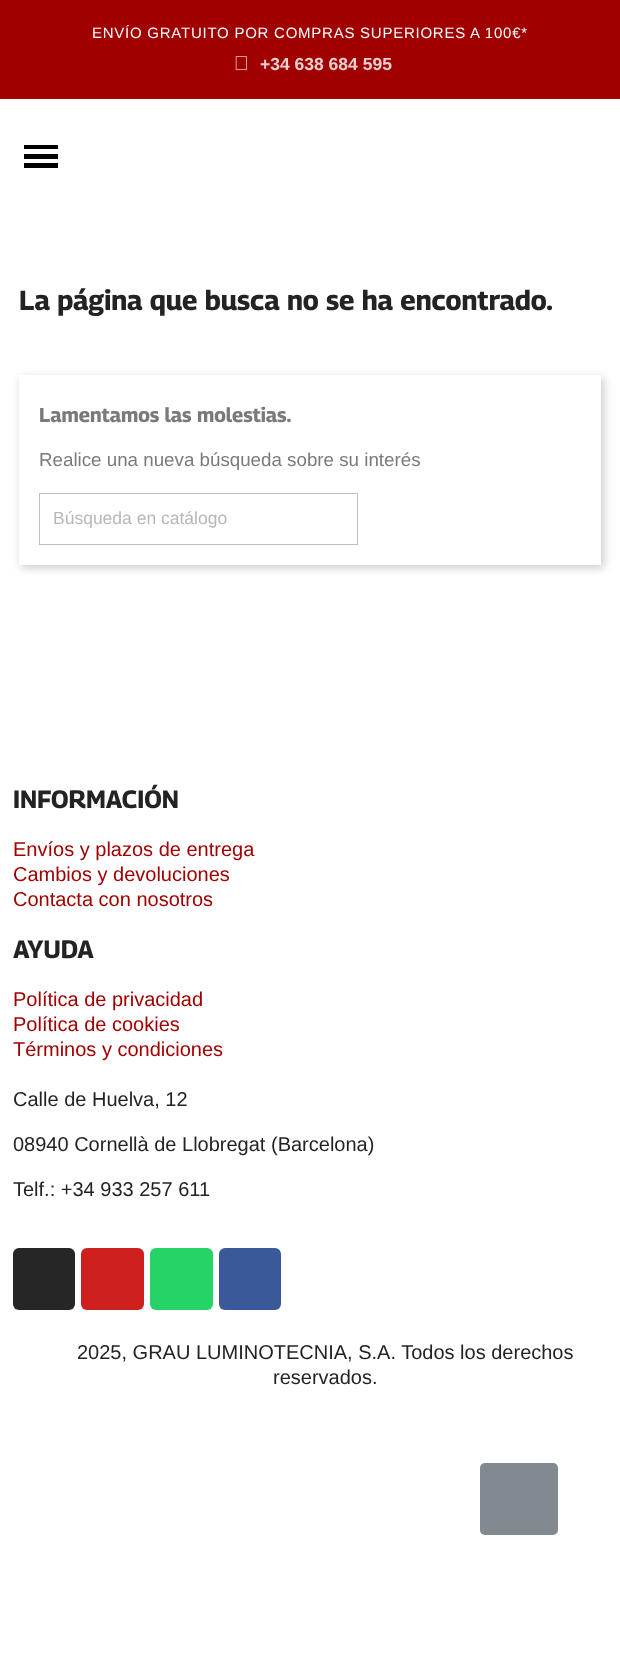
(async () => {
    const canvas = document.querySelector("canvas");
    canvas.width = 620;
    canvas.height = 1659;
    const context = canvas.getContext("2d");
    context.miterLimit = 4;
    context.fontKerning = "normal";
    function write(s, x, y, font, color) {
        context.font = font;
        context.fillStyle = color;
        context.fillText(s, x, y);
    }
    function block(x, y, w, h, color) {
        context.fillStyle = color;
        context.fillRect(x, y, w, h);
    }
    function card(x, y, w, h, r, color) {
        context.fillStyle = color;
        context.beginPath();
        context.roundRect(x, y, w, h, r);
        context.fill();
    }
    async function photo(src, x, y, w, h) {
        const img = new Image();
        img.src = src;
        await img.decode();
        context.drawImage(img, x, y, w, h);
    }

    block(0, 0, 620, 1659, "rgb(255, 255, 255)");
    block(0, 0, 620, 99, "rgb(160, 0, 0)");
    context.letterSpacing = "0.75px";
    write("ENVÍO GRATUITO POR COMPRAS SUPERIORES A 100€*", 92, 38, "15px Liberation Sans", "rgb(255, 255, 255)");
    await photo("media/1.png", 235, 56, 12, 14);
    context.letterSpacing = "0px";
    write("+34 638 684 595", 260, 70, "bold 17.5px Liberation Sans", "rgb(237, 207, 207)");
    block(24, 154, 34, 5, "rgb(0, 0, 0)");
    block(24, 145, 34, 4, "rgb(0, 0, 0)");
    block(24, 163, 34, 5, "rgb(0, 0, 0)");
    write("La página que busca no se ha encontrado.", 19, 310, "bold 27.5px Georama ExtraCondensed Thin", "rgb(35, 35, 35)");
    context.save();
    context.beginPath();
    context.moveTo(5, 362);
    context.lineTo(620, 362);
    context.lineTo(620, 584);
    context.lineTo(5, 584);
    context.closePath();
    context.moveTo(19, 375);
    context.lineTo(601, 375);
    context.lineTo(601, 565);
    context.lineTo(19, 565);
    context.closePath();
    context.clip("evenodd");
    context.fillStyle = "rgba(0, 0, 0, 0.2)";
    context.filter = "blur(5px)";
    context.beginPath();
    context.rect(21, 378, 583, 190);
    context.fill();
    context.filter = "none";
    context.restore();
    write("Lamentamos las molestias.", 39, 422, "bold 20px Georama ExtraCondensed Thin", "rgb(122, 122, 122)");
    write("Realice una nueva búsqueda sobre su interés", 39, 466, "18.75px Liberation Sans", "rgb(122, 122, 122)");
    context.strokeStyle = "rgb(191, 191, 191)";
    context.strokeRect(39.5, 493.5, 318, 51);
    write("Búsqueda en catálogo", 53, 524, "17.5px Liberation Sans", "rgb(183, 183, 183)");
    write("INFORMACIÓN", 13, 808, "bold 25px Georama ExtraCondensed Thin", "rgb(35, 35, 35)");
    write("Envíos y plazos de entrega", 13, 856, "20px Liberation Sans", "rgb(160, 0, 0)");
    write("Cambios y devoluciones", 13, 881, "20px Liberation Sans", "rgb(160, 0, 0)");
    write("Contacta con nosotros", 13, 906, "20px Liberation Sans", "rgb(160, 0, 0)");
    write("AYUDA", 13, 958, "bold 25px Georama ExtraCondensed Thin", "rgb(35, 35, 35)");
    write("Política de privacidad", 13, 1006, "20px Liberation Sans", "rgb(160, 0, 0)");
    write("Política de cookies", 13, 1031, "20px Liberation Sans", "rgb(160, 0, 0)");
    write("Términos y condiciones", 13, 1056, "20px Liberation Sans", "rgb(160, 0, 0)");
    write("Calle de Huelva, 12", 13, 1106, "20px Liberation Sans", "rgb(35, 35, 35)");
    write("08940 Cornellà de Llobregat (Barcelona)", 13, 1151, "20px Liberation Sans", "rgb(35, 35, 35)");
    write("Telf.: +34 933 257 611", 13, 1196, "20px Liberation Sans", "rgb(35, 35, 35)");
    card(13, 1248, 62, 62, 6, "rgb(38, 38, 38)");
    card(81, 1248, 63, 62, 6, "rgb(205, 32, 31)");
    card(150, 1248, 63, 62, 6, "rgb(37, 211, 102)");
    card(219, 1248, 62, 62, 6, "rgb(59, 89, 152)");
    write("2025, GRAU LUMINOTECNIA, S.A. Todos los derechos", 77, 1359, "20px Liberation Sans", "rgb(35, 35, 35)");
    write("reservados.", 273, 1384, "20px Liberation Sans", "rgb(35, 35, 35)");
    card(480, 1463, 78, 72, 5, "rgb(129, 138, 145)");
})();
